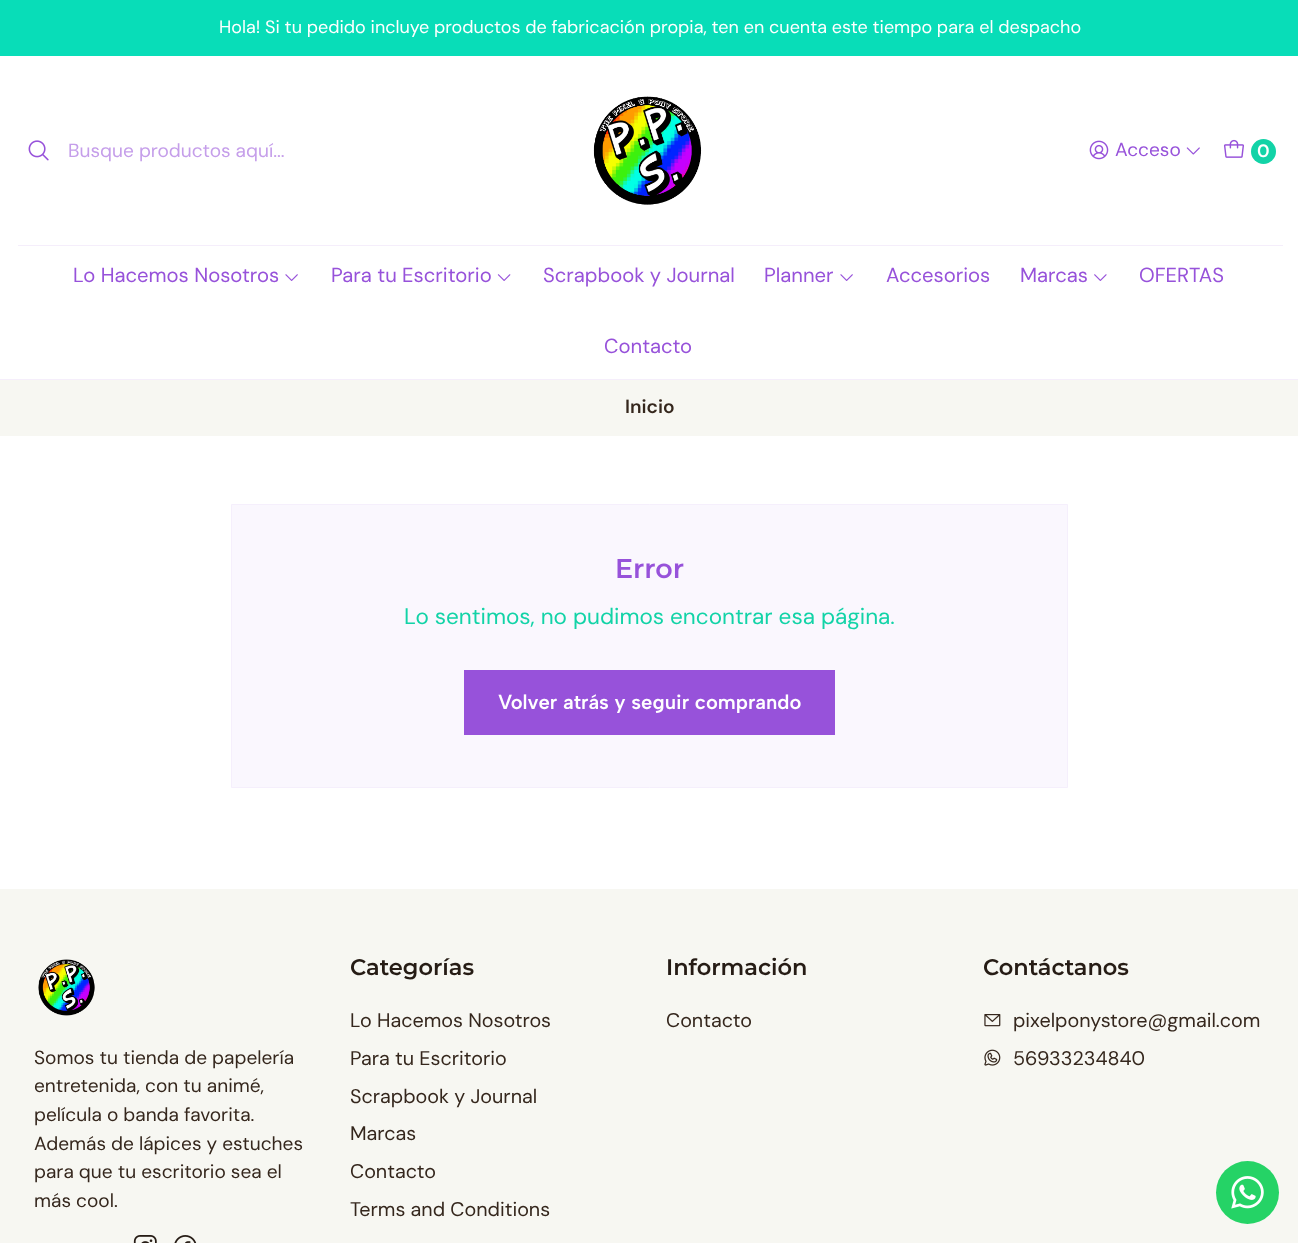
(async () => {
    const canvas = document.querySelector("canvas");
    canvas.width = 1298;
    canvas.height = 1243;
    const context = canvas.getContext("2d");
    context.miterLimit = 4;
    context.fontKerning = "normal";
    function write(s, x, y, font, color) {
        context.font = font;
        context.fillStyle = color;
        context.fillText(s, x, y);
    }
    function block(x, y, w, h, color) {
        context.fillStyle = color;
        context.fillRect(x, y, w, h);
    }
    async function photo(src, x, y, w, h) {
        const img = new Image();
        img.src = src;
        await img.decode();
        context.drawImage(img, x, y, w, h);
    }

    block(0, 0, 1298, 1243, "rgb(255, 255, 255)");
    block(0, 0, 1298, 56, "rgb(8, 221, 184)");
    write("Hola! Si tu pedido incluye productos de fabricación propia, ten en cuenta este tiempo para el despacho", 219, 33, "18px DM Sans", "rgb(255, 255, 255)");
    block(0, 379, 1298, 1, "rgb(245, 238, 251)");
    await photo("media/1.png", 28, 140, 21, 21);
    write("Busque productos aquí...", 68, 157, "19.1px DM Sans", "rgb(197, 158, 234)");
    await photo("media/2.png", 593, 96, 109, 109);
    await photo("media/3.png", 1089, 140, 20, 20);
    write("Acceso", 1115, 156, "19.1px DM Sans", "rgb(151, 82, 218)");
    await photo("media/4.png", 1186, 147, 14, 8);
    await photo("media/5.png", 1223, 139, 21, 19);
    context.fillStyle = "rgb(18, 211, 167)";
    context.beginPath();
    context.arc(1263.5, 151.5, 12.5, 0, Math.PI * 2);
    context.fill();
    write("0", 1257, 157, "600 18px DM Sans", "rgb(255, 255, 255)");
    block(18, 245, 1265, 1, "rgb(245, 238, 251)");
    write("Lo Hacemos Nosotros", 73, 282, "20.25px DM Sans", "rgb(151, 82, 218)");
    await photo("media/6.png", 285, 274, 13, 7);
    write("Para tu Escritorio", 331, 282, "20.25px DM Sans", "rgb(151, 82, 218)");
    await photo("media/7.png", 497, 274, 14, 7);
    write("Scrapbook y Journal", 543, 282, "20.25px DM Sans", "rgb(151, 82, 218)");
    write("Planner", 764, 282, "20.25px DM Sans", "rgb(151, 82, 218)");
    await photo("media/6.png", 840, 274, 13, 7);
    write("Accesorios", 886, 282, "20.25px DM Sans", "rgb(151, 82, 218)");
    write("Marcas", 1020, 282, "20.25px DM Sans", "rgb(151, 82, 218)");
    await photo("media/8.png", 1094, 274, 13, 7);
    write("OFERTAS", 1139, 282, "20.25px DM Sans", "rgb(151, 82, 218)");
    write("Contacto", 604, 353, "20.25px DM Sans", "rgb(151, 82, 218)");
    block(0, 380, 1298, 56, "rgb(247, 247, 242)");
    write("Inicio", 625, 413, "600 19.1px DM Sans", "rgb(53, 39, 29)");
    context.fillStyle = "rgb(250, 247, 254)";
    context.beginPath();
    context.rect(231.5, 504.5, 836, 283);
    context.fill();
    context.strokeStyle = "rgb(245, 239, 252)";
    context.stroke();
    write("Error", 615, 578, "600 27px Montserrat", "rgb(151, 82, 218)");
    write("Lo sentimos, no pudimos encontrar esa página.", 404, 624, "22.5px DM Sans", "rgb(18, 211, 167)");
    block(464, 670, 371, 65, "rgb(151, 82, 218)");
    write("Volver atrás y seguir comprando", 498, 709, "600 20.25px Albert Sans", "rgb(255, 255, 255)");
    block(0, 889, 1298, 354, "rgb(247, 247, 242)");
    write("Categorías", 350, 975, "600 22.5px Montserrat", "rgb(38, 28, 21)");
    write("Lo Hacemos Nosotros", 350, 1027, "19.75px DM Sans", "rgb(53, 39, 29)");
    write("Para tu Escritorio", 350, 1065, "19.75px DM Sans", "rgb(53, 39, 29)");
    write("Scrapbook y Journal", 350, 1103, "19.75px DM Sans", "rgb(53, 39, 29)");
    write("Marcas", 350, 1140, "19.75px DM Sans", "rgb(53, 39, 29)");
    write("Contacto", 350, 1178, "19.75px DM Sans", "rgb(53, 39, 29)");
    write("Terms and Conditions", 350, 1216, "19.75px DM Sans", "rgb(53, 39, 29)");
    write("Información", 666, 975, "600 22.5px Montserrat", "rgb(38, 28, 21)");
    write("Contacto", 666, 1027, "19.75px DM Sans", "rgb(53, 39, 29)");
    write("Contáctanos", 983, 975, "600 22.5px Montserrat", "rgb(38, 28, 21)");
    await photo("media/9.png", 984, 1014, 17, 13);
    write("pixelponystore@gmail.com", 1013, 1027, "19.75px DM Sans", "rgb(53, 39, 29)");
    await photo("media/10.png", 984, 1049, 17, 17);
    write("56933234840", 1013, 1065, "19.75px DM Sans", "rgb(53, 39, 29)");
    await photo("media/11.png", 38, 959, 57, 57);
    write("Somos tu tienda de papelería", 34, 1064, "19.1px DM Sans", "rgb(53, 39, 29)");
    write("entretenida, con tu animé,", 34, 1092, "19.1px DM Sans", "rgb(53, 39, 29)");
    write("película o banda favorita.", 34, 1121, "19.1px DM Sans", "rgb(53, 39, 29)");
    write("Además de lápices y estuches", 34, 1150, "19.1px DM Sans", "rgb(53, 39, 29)");
    write("para que tu escritorio sea el", 34, 1178, "19.1px DM Sans", "rgb(53, 39, 29)");
    write("más cool.", 34, 1207, "19.1px DM Sans", "rgb(53, 39, 29)");
    await photo("media/12.png", 133, 1235, 24, 8);
    await photo("media/13.png", 174, 1235, 23, 8);
    context.fillStyle = "rgb(37, 211, 102)";
    context.beginPath();
    context.arc(1247.5, 1192.5, 31.5, 0, Math.PI * 2);
    context.fill();
    await photo("media/14.png", 1231, 1176, 33, 33);
})();
